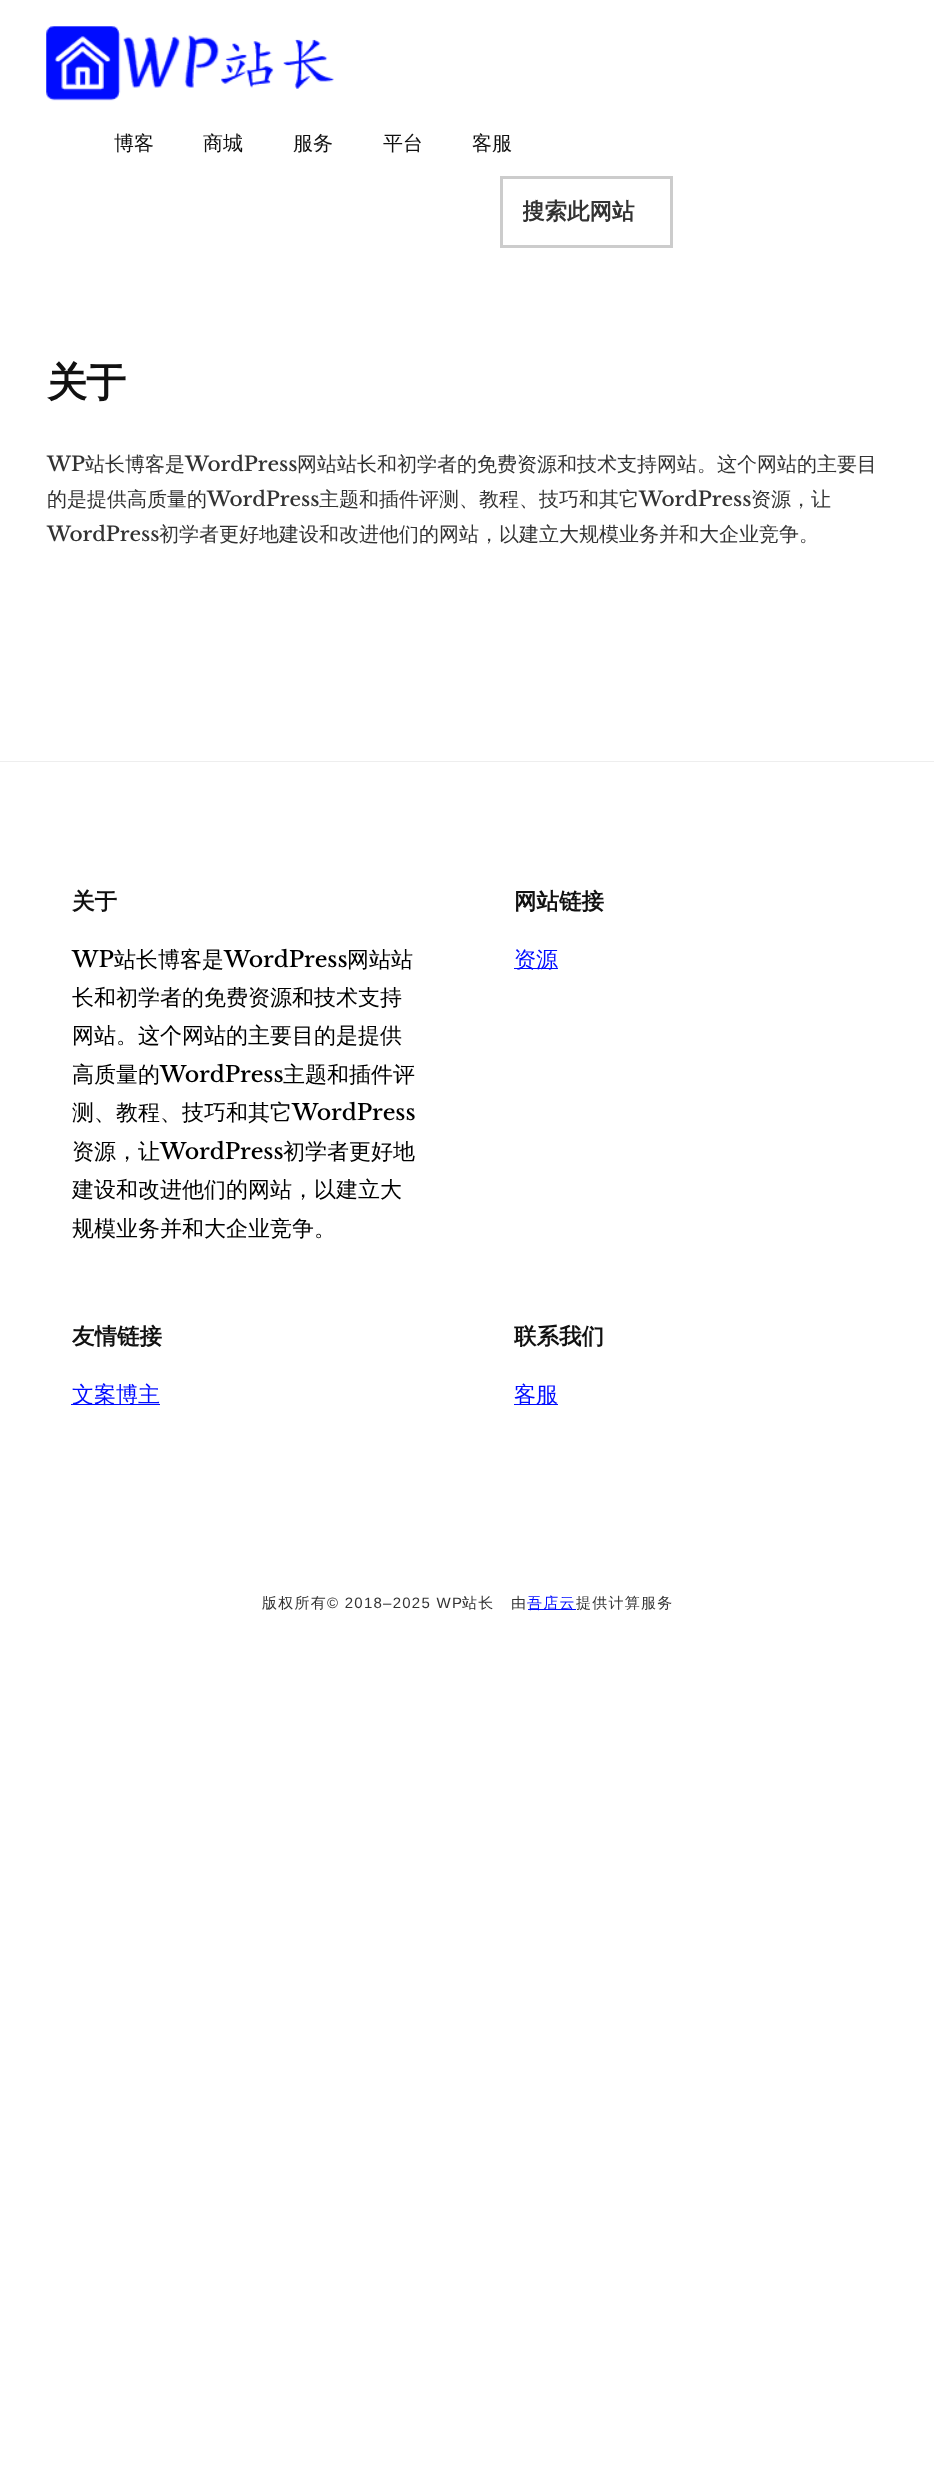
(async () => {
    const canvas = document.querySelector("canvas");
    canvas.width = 934;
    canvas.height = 2473;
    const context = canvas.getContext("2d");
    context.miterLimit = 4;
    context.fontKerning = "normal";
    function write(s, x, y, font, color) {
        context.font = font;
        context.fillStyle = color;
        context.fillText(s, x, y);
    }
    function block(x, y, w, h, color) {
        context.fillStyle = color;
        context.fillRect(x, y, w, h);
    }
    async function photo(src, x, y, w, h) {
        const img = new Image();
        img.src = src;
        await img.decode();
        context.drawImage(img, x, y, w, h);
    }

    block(0, 0, 934, 2473, "rgb(255, 255, 255)");
    await photo("media/1.png", 46, 26, 288, 75);
    write("博客", 114, 150, "500 20px WenQuanYi Zen Hei", "rgb(17, 17, 17)");
    write("商城", 203, 150, "500 20px WenQuanYi Zen Hei", "rgb(17, 17, 17)");
    write("服务", 293, 150, "500 20px WenQuanYi Zen Hei", "rgb(17, 17, 17)");
    write("平台", 383, 150, "500 20px WenQuanYi Zen Hei", "rgb(17, 17, 17)");
    write("客服", 472, 150, "500 20px WenQuanYi Zen Hei", "rgb(17, 17, 17)");
    context.strokeStyle = "rgb(204, 204, 204)";
    context.lineWidth = 3;
    context.strokeRect(501.5, 177.5, 170, 69);
    context.save();
    context.beginPath();
    context.rect(523, 196, 127, 30);
    context.clip();
    write("搜索此网站", 522, 219, "bold 22.5px WenQuanYi Zen Hei", "rgb(51, 51, 51)");
    context.restore();
    context.letterSpacing = "-1px";
    write("关于", 47, 396, "bold 40px WenQuanYi Zen Hei", "rgb(17, 17, 17)");
    context.letterSpacing = "0px";
    write("WP", 47, 471, "500 20px Libre Baskerville", "rgb(51, 51, 51)");
    write("站长博客是", 85, 471, "500 20px WenQuanYi Zen Hei", "rgb(51, 51, 51)");
    write("WordPress", 185, 471, "500 20px Libre Baskerville", "rgb(51, 51, 51)");
    write("网站站长和初学者的免费资源和技术支持网站。这个网站的主要目", 297, 471, "500 20px WenQuanYi Zen Hei", "rgb(51, 51, 51)");
    write("的是提供高质量的", 47, 506, "500 20px WenQuanYi Zen Hei", "rgb(51, 51, 51)");
    write("WordPress", 207, 506, "500 20px Libre Baskerville", "rgb(51, 51, 51)");
    write("主题和插件评测、教程、技巧和其它", 319, 506, "500 20px WenQuanYi Zen Hei", "rgb(51, 51, 51)");
    write("WordPress", 639, 506, "500 20px Libre Baskerville", "rgb(51, 51, 51)");
    write("资源，让", 751, 506, "500 20px WenQuanYi Zen Hei", "rgb(51, 51, 51)");
    write("WordPress", 47, 541, "500 20px Libre Baskerville", "rgb(51, 51, 51)");
    write("初学者更好地建设和改进他们的网站，以建立大规模业务并和大企业竞争。", 159, 541, "500 20px WenQuanYi Zen Hei", "rgb(51, 51, 51)");
    block(0, 761, 934, 1, "rgb(238, 238, 238)");
    write("关于", 72, 909, "bold 22.5px WenQuanYi Zen Hei", "rgb(17, 17, 17)");
    write("WP", 72, 967, "500 22px Libre Baskerville", "rgb(0, 0, 0)");
    write("站长博客是", 114, 967, "500 22px WenQuanYi Zen Hei", "rgb(0, 0, 0)");
    write("WordPress", 224, 967, "500 22px Libre Baskerville", "rgb(0, 0, 0)");
    write("网站站", 347, 967, "500 22px WenQuanYi Zen Hei", "rgb(0, 0, 0)");
    write("长和初学者的免费资源和技术支持", 72, 1005, "500 22px WenQuanYi Zen Hei", "rgb(0, 0, 0)");
    write("网站。这个网站的主要目的是提供", 72, 1043, "500 22px WenQuanYi Zen Hei", "rgb(0, 0, 0)");
    write("高质量的", 72, 1082, "500 22px WenQuanYi Zen Hei", "rgb(0, 0, 0)");
    write("WordPress", 160, 1082, "500 22px Libre Baskerville", "rgb(0, 0, 0)");
    write("主题和插件评", 283, 1082, "500 22px WenQuanYi Zen Hei", "rgb(0, 0, 0)");
    write("测、教程、技巧和其它", 72, 1120, "500 22px WenQuanYi Zen Hei", "rgb(0, 0, 0)");
    write("WordPress", 292, 1120, "500 22px Libre Baskerville", "rgb(0, 0, 0)");
    write("资源，让", 72, 1159, "500 22px WenQuanYi Zen Hei", "rgb(0, 0, 0)");
    write("WordPress", 160, 1159, "500 22px Libre Baskerville", "rgb(0, 0, 0)");
    write("初学者更好地", 283, 1159, "500 22px WenQuanYi Zen Hei", "rgb(0, 0, 0)");
    write("建设和改进他们的网站，以建立大", 72, 1197, "500 22px WenQuanYi Zen Hei", "rgb(0, 0, 0)");
    write("规模业务并和大企业竞争。", 72, 1236, "500 22px WenQuanYi Zen Hei", "rgb(0, 0, 0)");
    write("网站链接", 514, 909, "bold 22.5px WenQuanYi Zen Hei", "rgb(17, 17, 17)");
    block(514, 968, 44, 1, "rgb(0, 12, 255)");
    write("资源", 514, 967, "500 22px WenQuanYi Zen Hei", "rgb(0, 12, 255)");
    write("友情链接", 72, 1344, "bold 22.5px WenQuanYi Zen Hei", "rgb(17, 17, 17)");
    block(71, 1404, 89, 1, "rgb(0, 12, 255)");
    write("文案博主", 72, 1402, "500 22px WenQuanYi Zen Hei", "rgb(0, 12, 255)");
    write("联系我们", 514, 1344, "bold 22.5px WenQuanYi Zen Hei", "rgb(17, 17, 17)");
    block(514, 1404, 44, 1, "rgb(0, 12, 255)");
    write("客服", 514, 1402, "500 22px WenQuanYi Zen Hei", "rgb(0, 12, 255)");
    context.letterSpacing = "1.25px";
    write("版权所有", 262, 1608, "500 15px WenQuanYi Zen Hei", "rgb(51, 51, 51)");
    write("© 2018–2025 WP", 327, 1608, "15px Liberation Sans", "rgb(51, 51, 51)");
    write("站长", 462, 1608, "500 15px WenQuanYi Zen Hei", "rgb(51, 51, 51)");
    write("由", 511, 1608, "500 15px WenQuanYi Zen Hei", "rgb(51, 51, 51)");
    block(528, 1609, 48, 1, "rgb(0, 12, 255)");
    write("吾店云", 527, 1608, "500 15px WenQuanYi Zen Hei", "rgb(0, 12, 255)");
    write("提供计算服务", 576, 1608, "500 15px WenQuanYi Zen Hei", "rgb(51, 51, 51)");
})();
